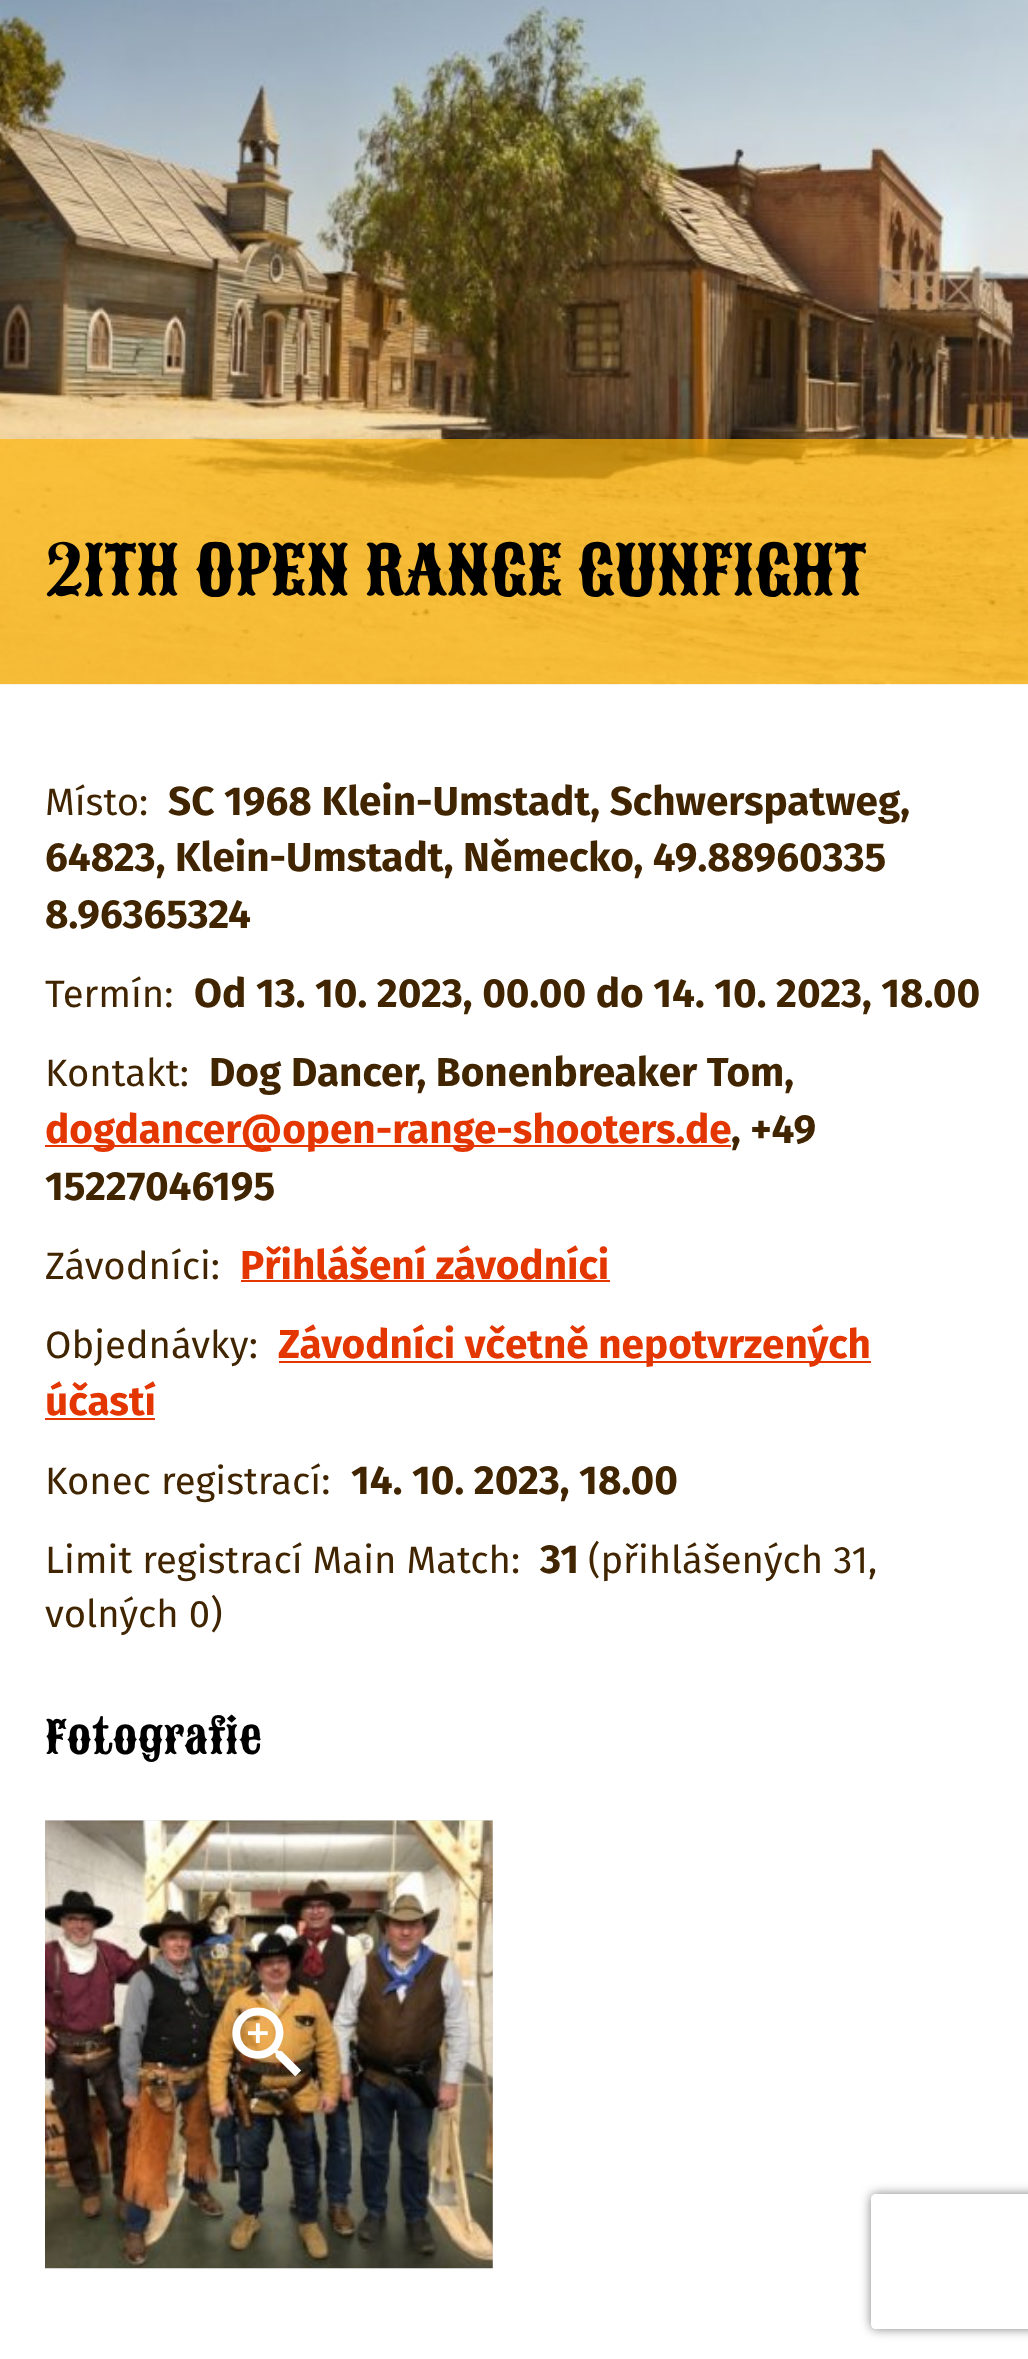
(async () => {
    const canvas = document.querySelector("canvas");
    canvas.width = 1028;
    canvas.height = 2359;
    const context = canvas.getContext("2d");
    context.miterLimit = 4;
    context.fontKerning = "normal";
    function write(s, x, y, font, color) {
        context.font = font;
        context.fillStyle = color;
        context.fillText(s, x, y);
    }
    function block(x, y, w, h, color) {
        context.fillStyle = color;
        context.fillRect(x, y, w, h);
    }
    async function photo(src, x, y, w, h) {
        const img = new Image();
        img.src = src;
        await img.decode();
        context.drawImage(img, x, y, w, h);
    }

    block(0, 0, 1028, 2359, "rgb(255, 255, 255)");
    await photo("media/1.png", 0, 0, 1028, 685);
    block(0, 439, 1028, 245, "rgba(255, 179, 0, 0.65)");
    write("21TH OPEN RANGE GUNFIGHT", 45, 594, "67.5px Sancreek", "rgb(0, 0, 0)");
    write("Místo:", 45, 815, "38.25px Fira Sans", "rgb(64, 37, 0)");
    write("SC 1968 Klein-Umstadt, Schwerspatweg,", 168, 815, "bold 40.5px Fira Sans", "rgb(64, 37, 0)");
    write("64823, Klein-Umstadt, Německo, 49.88960335", 45, 871, "bold 40.5px Fira Sans", "rgb(64, 37, 0)");
    write("8.96365324", 45, 928, "bold 40.5px Fira Sans", "rgb(64, 37, 0)");
    write("Termín:", 45, 1007, "38.25px Fira Sans", "rgb(64, 37, 0)");
    write("Od 13. 10. 2023, 00.00 do 14. 10. 2023, 18.00", 194, 1007, "bold 40.5px Fira Sans", "rgb(64, 37, 0)");
    write("Kontakt:", 45, 1086, "38.25px Fira Sans", "rgb(64, 37, 0)");
    write("Dog Dancer, Bonenbreaker Tom,", 209, 1086, "bold 40.5px Fira Sans", "rgb(64, 37, 0)");
    block(45, 1145, 686, 2, "rgb(227, 54, 0)");
    write("dogdancer@open-range-shooters.de", 45, 1143, "bold 40.5px Fira Sans", "rgb(227, 54, 0)");
    write(", +49", 731, 1143, "bold 40.5px Fira Sans", "rgb(64, 37, 0)");
    write("15227046195", 45, 1200, "bold 40.5px Fira Sans", "rgb(64, 37, 0)");
    write("Závodníci:", 45, 1279, "38.25px Fira Sans", "rgb(64, 37, 0)");
    write("Přihlášení závodníci", 240, 1279, "bold 40.5px Fira Sans", "rgb(227, 54, 0)");
    block(241, 1280, 369, 2, "rgb(227, 54, 0)");
    write("Objednávky:", 45, 1358, "38.25px Fira Sans", "rgb(64, 37, 0)");
    block(279, 1361, 592, 2, "rgb(227, 54, 0)");
    write("Závodníci včetně nepotvrzených", 278, 1358, "bold 40.5px Fira Sans", "rgb(227, 54, 0)");
    write("účastí", 45, 1415, "bold 40.5px Fira Sans", "rgb(227, 54, 0)");
    block(45, 1418, 110, 2, "rgb(227, 54, 0)");
    write("Konec registrací:", 45, 1494, "38.25px Fira Sans", "rgb(64, 37, 0)");
    write("14. 10. 2023, 18.00", 351, 1494, "bold 40.5px Fira Sans", "rgb(64, 37, 0)");
    write("Limit registrací Main Match:", 45, 1573, "38.25px Fira Sans", "rgb(64, 37, 0)");
    write("31", 540, 1573, "bold 40.5px Fira Sans", "rgb(64, 37, 0)");
    write("(přihlášených 31,", 588, 1573, "38.25px Fira Sans", "rgb(64, 37, 0)");
    write("volných 0)", 45, 1627, "38.25px Fira Sans", "rgb(64, 37, 0)");
    write("Fotografie", 45, 1753, "45px Sancreek", "rgb(0, 0, 0)");
    block(45, 1820, 448, 448, "rgb(230, 230, 230)");
    await photo("media/2.png", 45, 1820, 448, 449);
    await photo("media/3.png", 232, 2007, 70, 70);
    context.save();
    context.beginPath();
    context.moveTo(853, 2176);
    context.lineTo(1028, 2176);
    context.lineTo(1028, 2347);
    context.lineTo(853, 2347);
    context.closePath();
    context.moveTo(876, 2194);
    context.lineTo(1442, 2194);
    context.bezierCurveTo(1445, 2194, 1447, 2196, 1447, 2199);
    context.lineTo(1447, 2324);
    context.bezierCurveTo(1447, 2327, 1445, 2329, 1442, 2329);
    context.lineTo(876, 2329);
    context.bezierCurveTo(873, 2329, 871, 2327, 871, 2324);
    context.lineTo(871, 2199);
    context.bezierCurveTo(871, 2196, 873, 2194, 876, 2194);
    context.closePath();
    context.clip("evenodd");
    context.fillStyle = "rgb(128, 128, 128)";
    context.filter = "blur(5.5px)";
    context.beginPath();
    context.roundRect(871, 2194, 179, 135, 5);
    context.fill();
    context.filter = "none";
    context.restore();
})();
